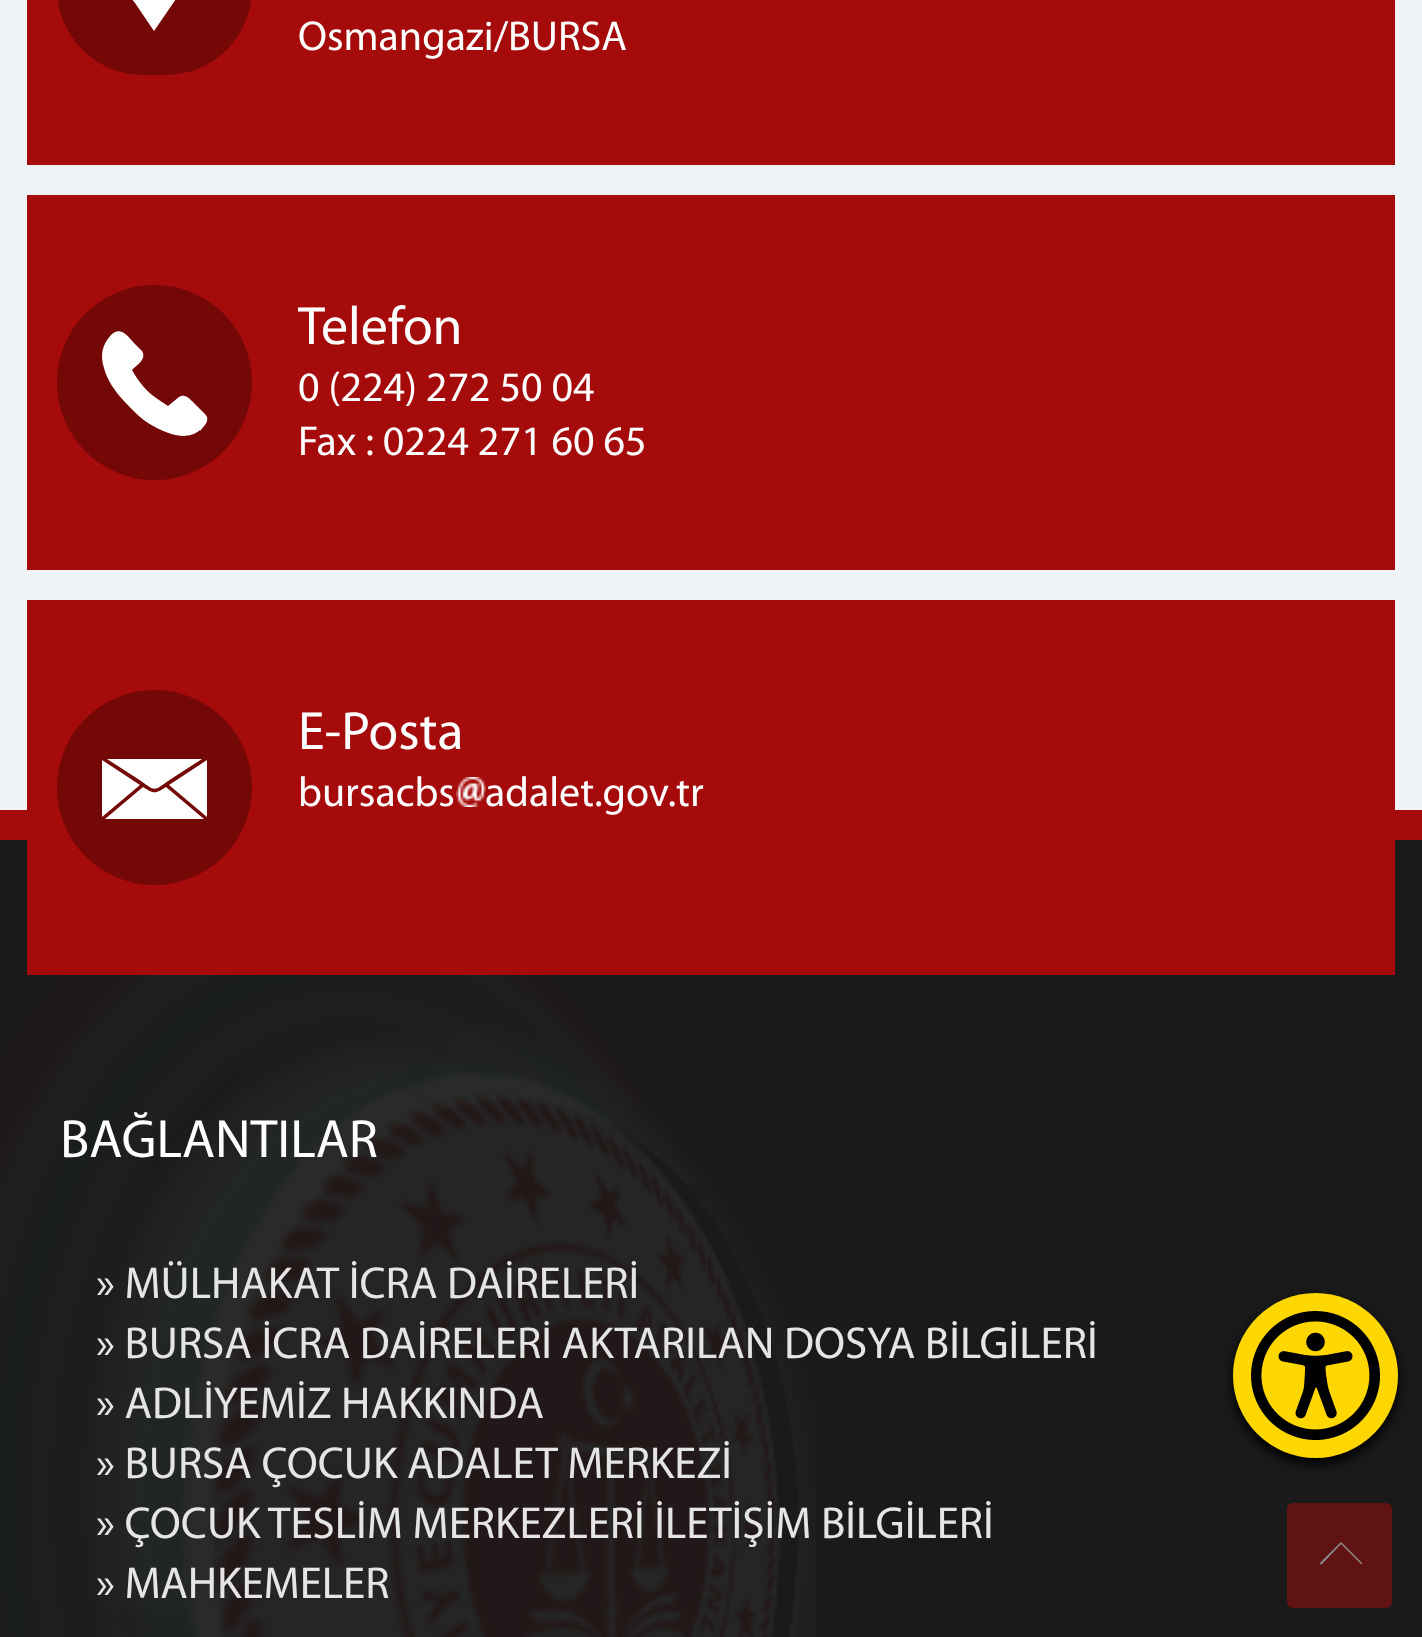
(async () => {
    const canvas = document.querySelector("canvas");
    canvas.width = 1422;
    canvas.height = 1637;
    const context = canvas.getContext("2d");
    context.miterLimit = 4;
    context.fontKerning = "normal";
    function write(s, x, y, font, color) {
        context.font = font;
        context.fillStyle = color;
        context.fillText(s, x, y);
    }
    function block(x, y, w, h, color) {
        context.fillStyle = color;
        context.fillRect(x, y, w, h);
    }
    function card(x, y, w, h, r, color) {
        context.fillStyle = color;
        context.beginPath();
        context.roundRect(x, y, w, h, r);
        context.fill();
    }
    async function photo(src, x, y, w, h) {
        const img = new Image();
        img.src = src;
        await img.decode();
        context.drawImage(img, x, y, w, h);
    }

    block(0, 0, 1422, 1637, "rgb(239, 243, 246)");
    block(27, 0, 1368, 165, "rgb(164, 11, 10)");
    card(57, -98, 195, 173, 97.5, "rgb(115, 8, 7)");
    context.fillStyle = "rgb(255, 255, 255)";
    context.beginPath();
    context.moveTo(181, -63);
    context.bezierCurveTo(192, -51, 195, -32, 187, -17);
    context.lineTo(154, 31);
    context.lineTo(135, 3);
    context.bezierCurveTo(128, -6, 120, -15, 118, -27);
    context.bezierCurveTo(114, -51, 129, -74, 154, -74);
    context.bezierCurveTo(164, -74, 174, -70, 181, -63);
    context.closePath();
    context.moveTo(145, -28);
    context.bezierCurveTo(158, -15, 177, -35, 164, -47);
    context.bezierCurveTo(152, -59, 133, -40, 145, -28);
    context.closePath();
    context.fill();
    write("Osmangazi/BURSA", 298, 50, "42px Myriad", "rgb(255, 255, 255)");
    block(27, 195, 1368, 375, "rgb(164, 11, 10)");
    context.fillStyle = "rgb(115, 8, 7)";
    context.beginPath();
    context.arc(154.5, 382.5, 97.5, 0, Math.PI * 2);
    context.fill();
    context.fillStyle = "rgb(255, 255, 255)";
    context.beginPath();
    context.moveTo(205, 414);
    context.bezierCurveTo(211, 420, 204, 426, 200, 431);
    context.lineTo(200, 430);
    context.bezierCurveTo(184, 444, 159, 430, 145, 421);
    context.bezierCurveTo(137, 415, 130, 407, 123, 400);
    context.bezierCurveTo(115, 391, 107, 380, 104, 368);
    context.bezierCurveTo(100, 355, 102, 345, 111, 335);
    context.bezierCurveTo(114, 332, 118, 330, 122, 332);
    context.bezierCurveTo(126, 333, 132, 341, 135, 344);
    context.lineTo(142, 351);
    context.bezierCurveTo(147, 359, 137, 365, 132, 370);
    context.bezierCurveTo(138, 381, 146, 391, 156, 398);
    context.lineTo(168, 406);
    context.lineTo(179, 397);
    context.bezierCurveTo(185, 393, 190, 399, 194, 403);
    context.closePath();
    context.fill();
    write("Telefon", 298, 344, "54px Myriad", "rgb(255, 255, 255)");
    write("0 (224) 272 50 04", 298, 401, "42px Myriad", "rgb(255, 255, 255)");
    write("Fax : 0224 271 60 65", 298, 455, "42px Myriad", "rgb(255, 255, 255)");
    block(0, 840, 1422, 797, "rgb(26, 26, 26)");
    block(0, 810, 1422, 30, "rgb(164, 11, 10)");
    block(27, 600, 1368, 375, "rgb(164, 11, 10)");
    context.fillStyle = "rgb(115, 8, 7)";
    context.beginPath();
    context.arc(154.5, 787.5, 97.5, 0, Math.PI * 2);
    context.fill();
    context.fillStyle = "rgb(255, 255, 255)";
    context.beginPath();
    context.moveTo(166, 787);
    context.lineTo(204, 819);
    context.lineTo(105, 819);
    context.lineTo(143, 787);
    context.bezierCurveTo(154, 794, 155, 794, 166, 787);
    context.closePath();
    context.moveTo(169, 785);
    context.lineTo(207, 760);
    context.lineTo(207, 817);
    context.closePath();
    context.moveTo(102, 760);
    context.lineTo(140, 785);
    context.lineTo(102, 817);
    context.closePath();
    context.moveTo(107, 759);
    context.lineTo(202, 759);
    context.lineTo(171, 779);
    context.bezierCurveTo(152, 792, 157, 792, 138, 779);
    context.closePath();
    context.fill();
    write("E-Posta", 298, 749, "54px Myriad", "rgb(255, 255, 255)");
    write("bursacbs", 298, 806, "42px Myriad", "rgb(255, 255, 255)");
    await photo("media/1.png", 456, 777, 30, 30);
    write("adalet.gov.tr", 485, 806, "42px Myriad", "rgb(255, 255, 255)");
    await photo("media/2.png", 0, 975, 817, 662);
    write("BAĞLANTILAR", 60, 1157, "54px Myriad", "rgb(255, 255, 255)");
    write("» MÜLHAKAT İCRA DAİRELERİ", 96, 1298, "45px Myriad", "rgb(229, 229, 229)");
    write("» BURSA İCRA DAİRELERİ AKTARILAN DOSYA BİLGİLERİ", 96, 1358, "45px Myriad", "rgb(229, 229, 229)");
    write("» ADLİYEMİZ HAKKINDA", 96, 1418, "45px Myriad", "rgb(229, 229, 229)");
    write("» BURSA ÇOCUK ADALET MERKEZİ", 96, 1478, "45px Myriad", "rgb(229, 229, 229)");
    write("» ÇOCUK TESLİM MERKEZLERİ İLETİŞİM BİLGİLERİ", 96, 1538, "45px Myriad", "rgb(229, 229, 229)");
    write("» MAHKEMELER", 96, 1598, "45px Myriad", "rgb(229, 229, 229)");
    context.fillStyle = "rgb(0, 0, 0)";
    context.filter = "blur(6px)";
    context.beginPath();
    context.roundRect(1233, 1299, 165, 165, 82.5);
    context.fill();
    context.filter = "none";
    context.fillStyle = "rgb(255, 215, 0)";
    context.beginPath();
    context.arc(1315.5, 1375.5, 82.5, 0, Math.PI * 2);
    context.fill();
    await photo("media/3.png", 1251, 1311, 129, 129);
    card(1287, 1503, 105, 105, 6, "rgb(95, 19, 18)");
    context.fillStyle = "rgb(141, 141, 141)";
    context.beginPath();
    context.moveTo(1362, 1563);
    context.bezierCurveTo(1363, 1563, 1361, 1565, 1361, 1564);
    context.lineTo(1341, 1544);
    context.lineTo(1322, 1564);
    context.bezierCurveTo(1321, 1565, 1320, 1564, 1320, 1563);
    context.lineTo(1337, 1546);
    context.bezierCurveTo(1342, 1541, 1340, 1541, 1345, 1546);
    context.closePath();
    context.fill();
})();
